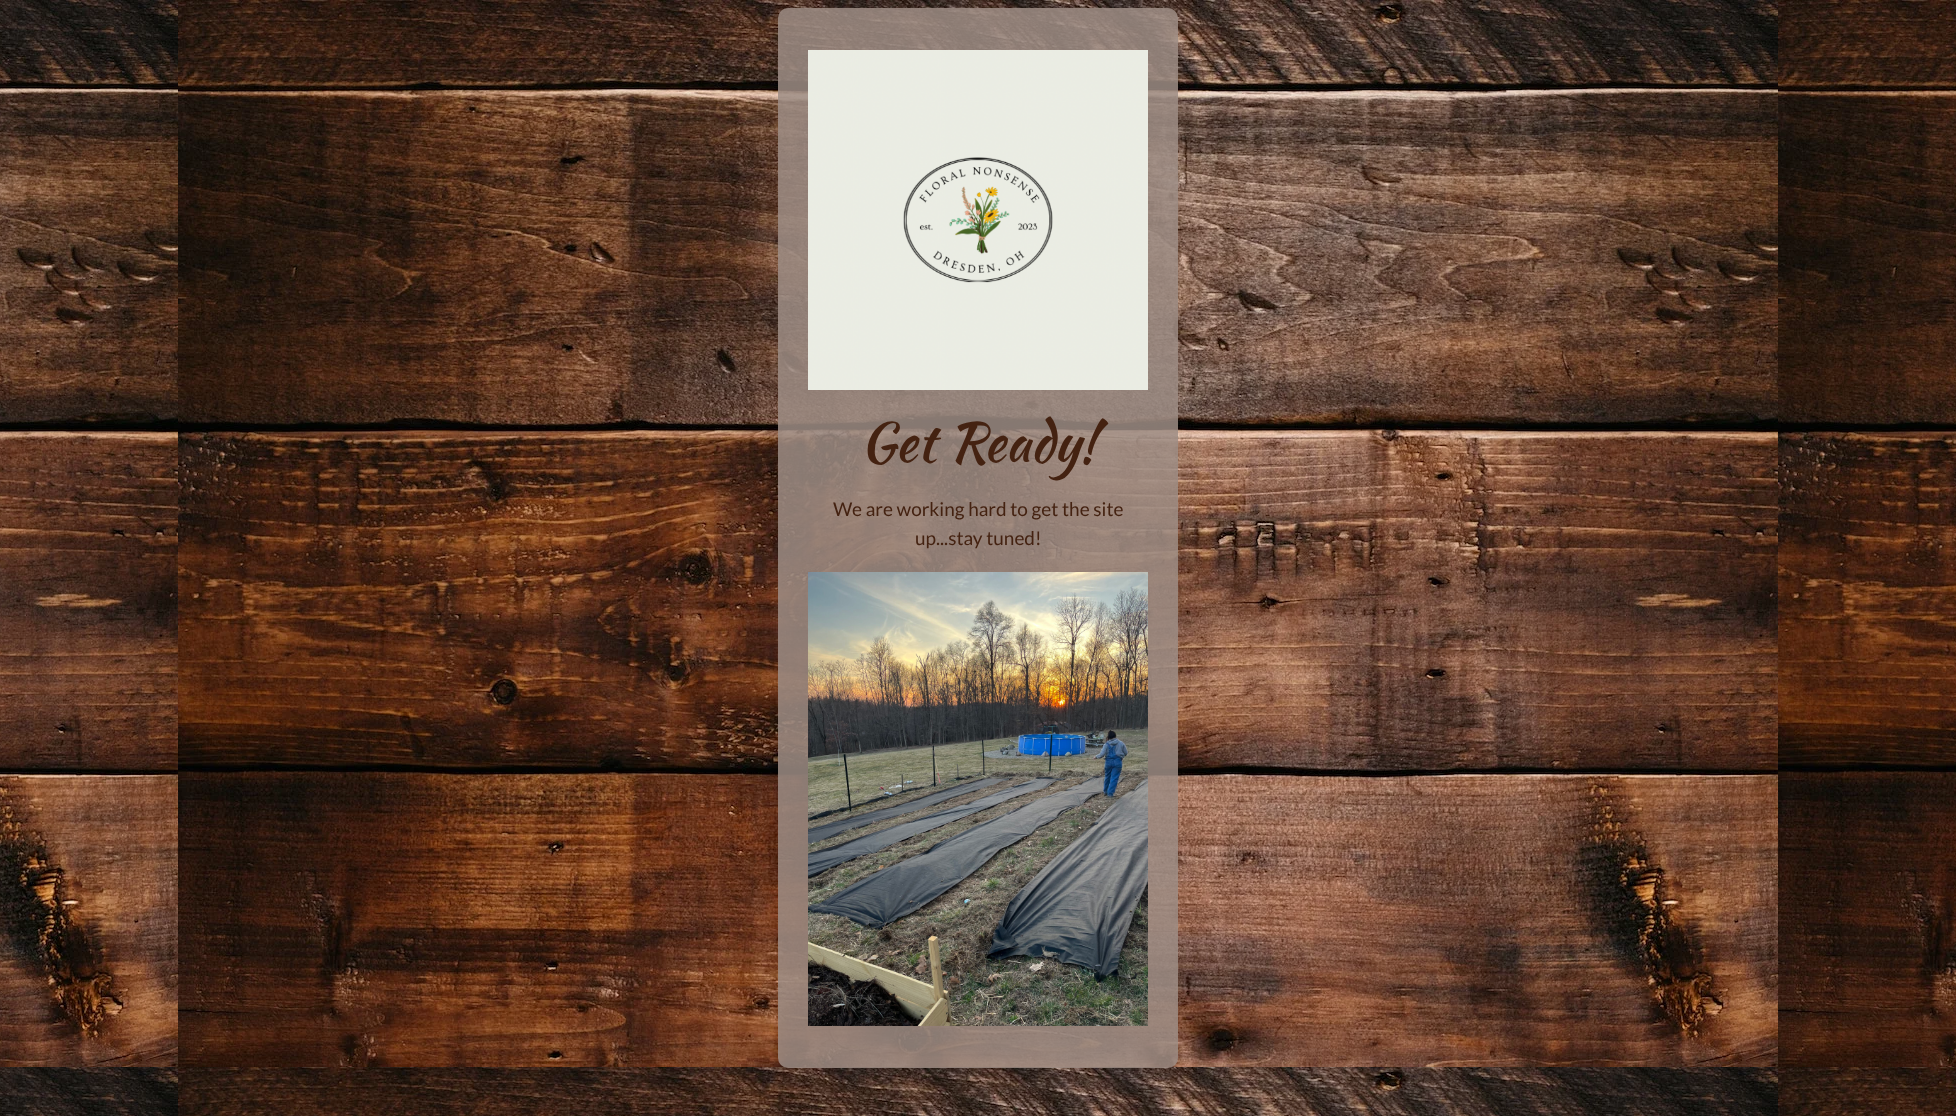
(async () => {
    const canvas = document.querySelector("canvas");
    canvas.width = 1956;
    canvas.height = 1116;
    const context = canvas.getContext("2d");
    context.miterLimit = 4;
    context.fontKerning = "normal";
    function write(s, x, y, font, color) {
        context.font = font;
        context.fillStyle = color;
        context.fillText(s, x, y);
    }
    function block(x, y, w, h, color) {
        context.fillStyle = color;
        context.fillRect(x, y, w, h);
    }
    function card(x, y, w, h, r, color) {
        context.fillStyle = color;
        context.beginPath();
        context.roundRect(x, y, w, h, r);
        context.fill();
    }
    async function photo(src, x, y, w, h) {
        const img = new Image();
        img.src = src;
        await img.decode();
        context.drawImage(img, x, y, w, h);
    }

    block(0, 0, 1956, 1116, "rgb(255, 255, 255)");
    await photo("media/1.png", 0, 0, 1956, 1116);
    card(778, 8, 400, 1060, 10, "rgba(158, 141, 133, 0.85)");
    await photo("media/2.png", 808, 50, 340, 340);
    write("Get Ready!", 860, 461, "54px Kaushan Script", "rgb(68, 34, 17)");
    write("We are working hard to get the site", 833, 516, "19px Lato", "rgb(68, 34, 17)");
    write("up...stay tuned!", 915, 545, "19px Lato", "rgb(68, 34, 17)");
    await photo("media/3.png", 808, 572, 340, 454);
})();
